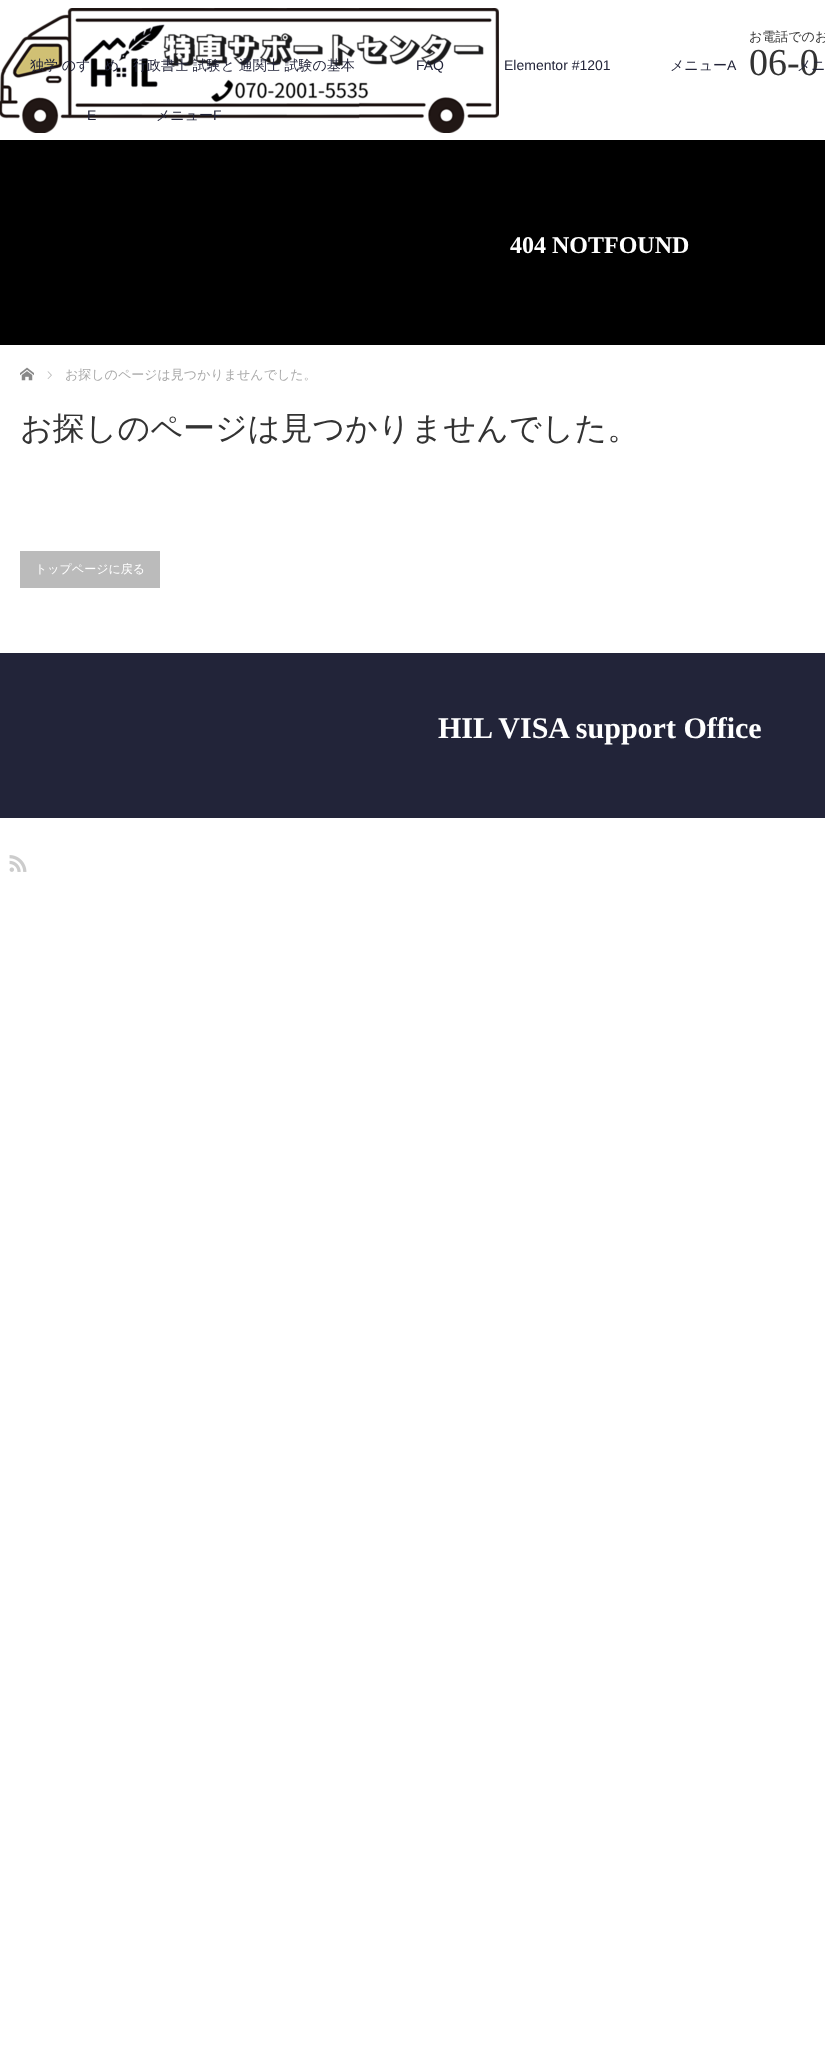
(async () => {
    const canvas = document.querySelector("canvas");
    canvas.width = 825;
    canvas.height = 2054;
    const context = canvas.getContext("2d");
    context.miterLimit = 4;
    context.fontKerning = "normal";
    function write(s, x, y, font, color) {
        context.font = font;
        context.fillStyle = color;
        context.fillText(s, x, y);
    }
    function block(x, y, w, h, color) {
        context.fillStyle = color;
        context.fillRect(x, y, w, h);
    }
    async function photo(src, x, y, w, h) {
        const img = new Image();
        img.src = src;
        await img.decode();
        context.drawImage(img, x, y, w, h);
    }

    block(0, 0, 825, 2054, "rgb(255, 255, 255)");
    await photo("media/1.png", 0, 8, 499, 125);
    write("お電話でのお", 749, 41, "500 13px WenQuanYi Zen Hei", "rgb(51, 51, 51)");
    write("06-0", 749, 75, "38px Liberation Serif", "rgb(51, 51, 51)");
    context.wordSpacing = "-0.5px";
    write("独学 のすゝめ　行政書士 試験と 通関士 試験の基本", 30, 70, "500 14px WenQuanYi Zen Hei", "rgb(34, 36, 57)");
    context.wordSpacing = "0px";
    write("FAQ", 416, 70, "14px Liberation Sans", "rgb(34, 36, 57)");
    write("Elementor #1201", 504, 70, "14px Liberation Sans", "rgb(34, 36, 57)");
    write("メニュー", 670, 70, "500 14px WenQuanYi Zen Hei", "rgb(34, 36, 57)");
    write("A", 727, 70, "14px Liberation Sans", "rgb(34, 36, 57)");
    write("メニ", 797, 70, "500 14px WenQuanYi Zen Hei", "rgb(34, 36, 57)");
    write("E", 87, 120, "14px Liberation Sans", "rgb(34, 36, 57)");
    write("メニュー", 156, 120, "500 14px WenQuanYi Zen Hei", "rgb(34, 36, 57)");
    write("F", 213, 120, "14px Liberation Sans", "rgb(34, 36, 57)");
    block(0, 140, 825, 205, "rgb(0, 0, 0)");
    write("404 NOTFOUND", 510, 253, "bold 24px Liberation Serif", "rgb(255, 255, 255)");
    await photo("media/2.png", 20, 367, 14, 14);
    await photo("media/3.png", 47, 371, 5, 8);
    write("お探しのページは見つかりませんでした。", 65, 379, "500 13px WenQuanYi Zen Hei", "rgb(170, 170, 170)");
    write("お探しのページは見つかりませんでした。", 20, 439, "500 32px WenQuanYi Zen Hei", "rgb(51, 51, 51)");
    block(20, 551, 140, 37, "rgb(187, 187, 187)");
    write("トップページに戻る", 35, 573, "500 12px WenQuanYi Zen Hei", "rgb(255, 255, 255)");
    block(0, 653, 825, 165, "rgb(34, 36, 57)");
    write("HIL VISA support Office", 438, 738, "bold 30px Liberation Serif", "rgb(255, 255, 255)");
    await photo("media/4.png", 9, 855, 18, 17);
})();
